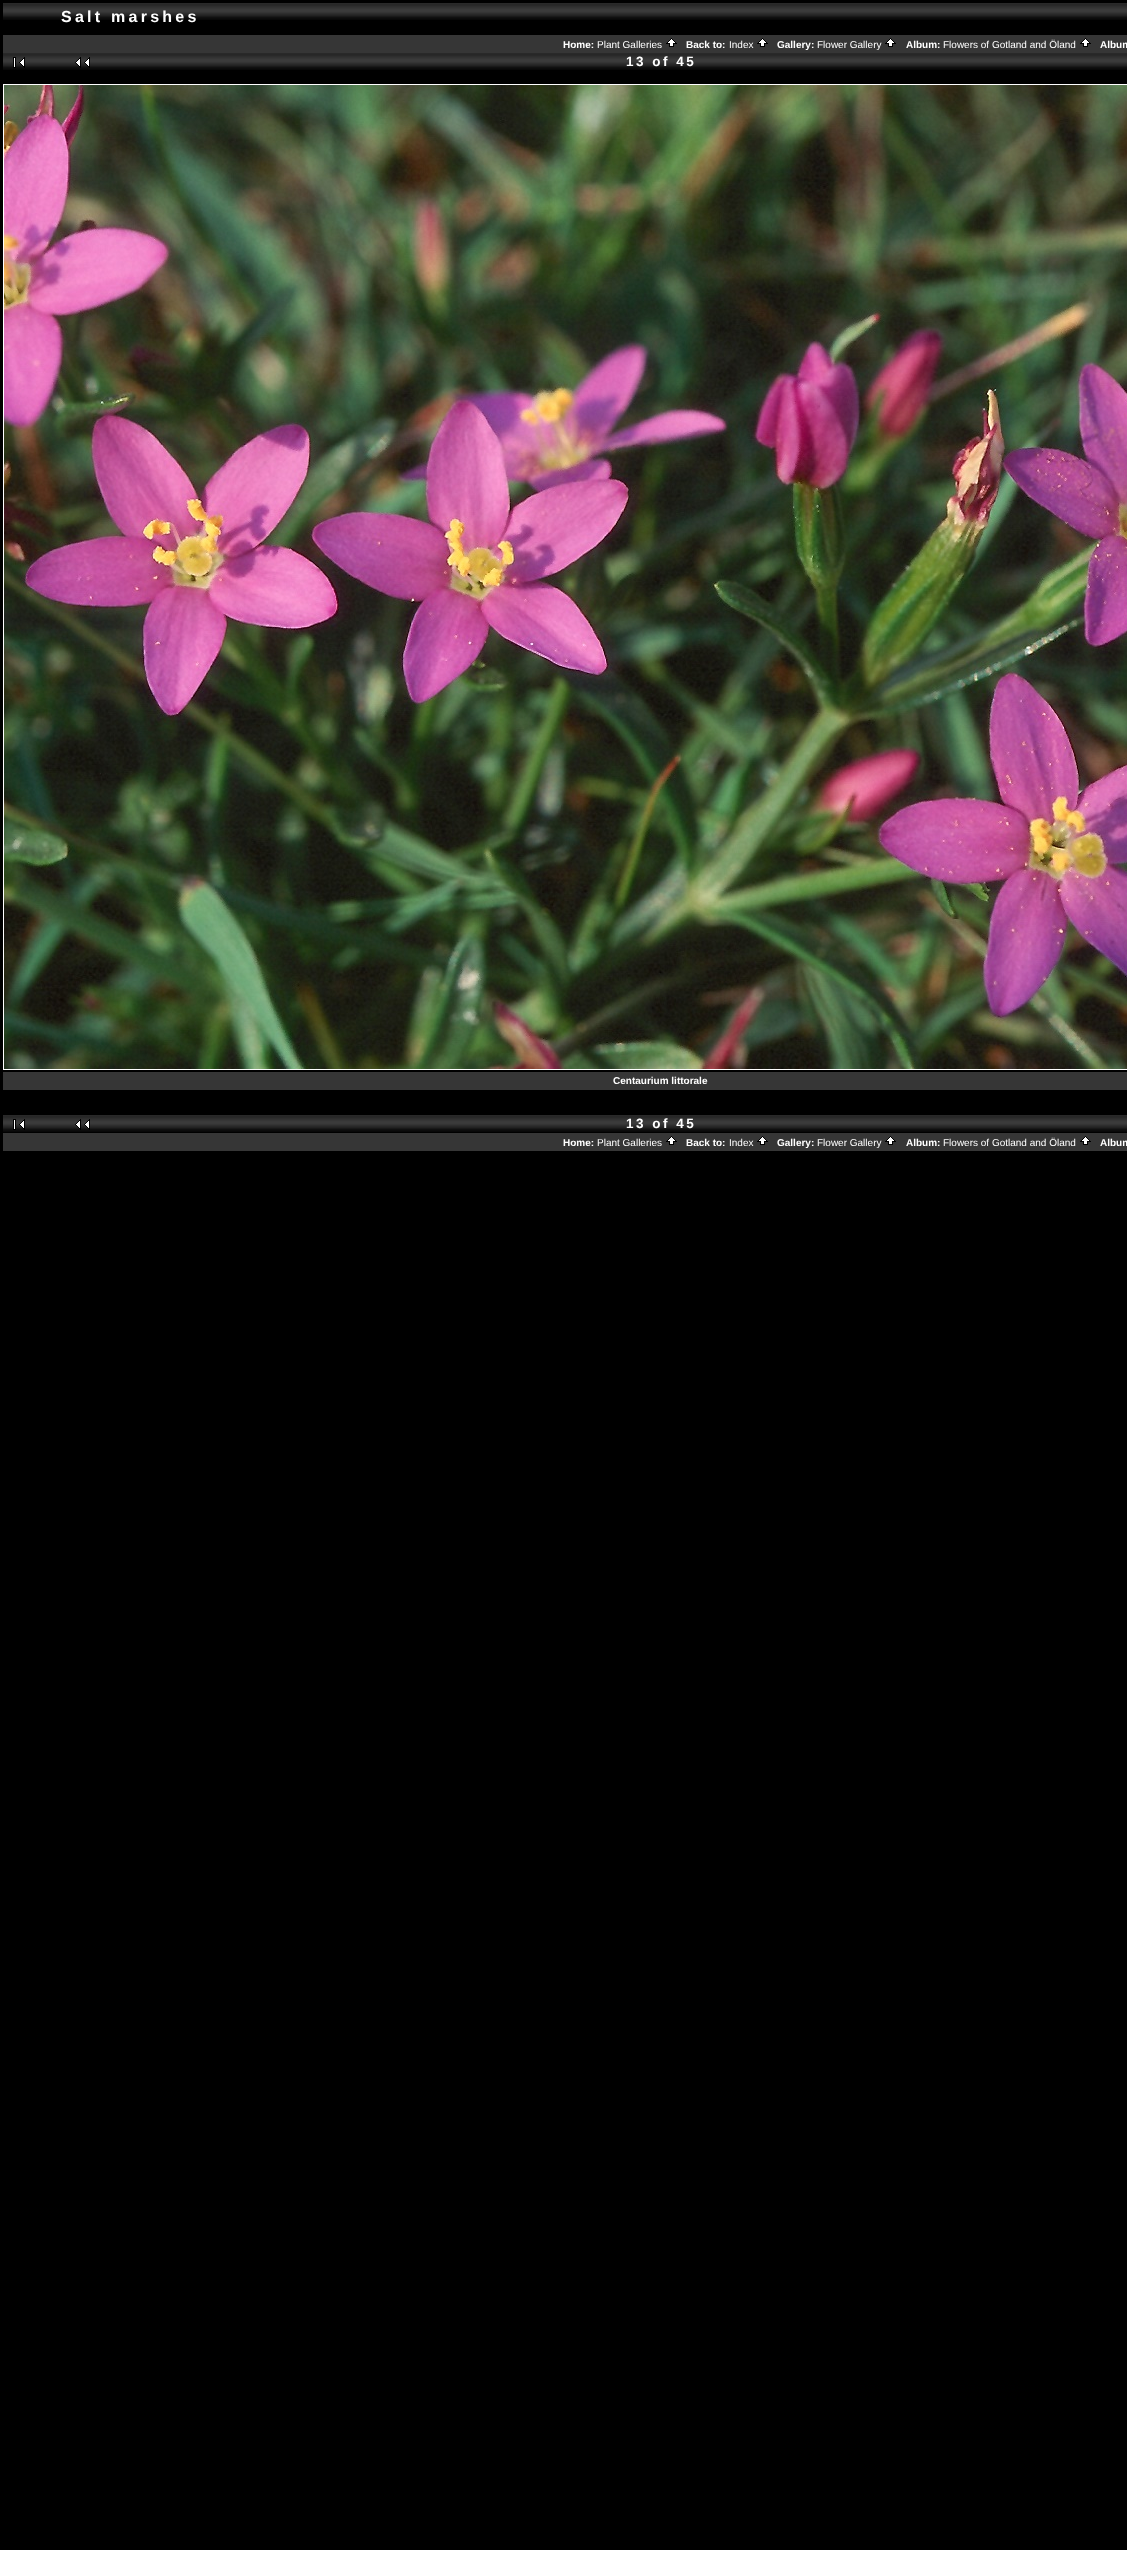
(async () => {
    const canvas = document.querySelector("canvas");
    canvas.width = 1127;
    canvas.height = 2550;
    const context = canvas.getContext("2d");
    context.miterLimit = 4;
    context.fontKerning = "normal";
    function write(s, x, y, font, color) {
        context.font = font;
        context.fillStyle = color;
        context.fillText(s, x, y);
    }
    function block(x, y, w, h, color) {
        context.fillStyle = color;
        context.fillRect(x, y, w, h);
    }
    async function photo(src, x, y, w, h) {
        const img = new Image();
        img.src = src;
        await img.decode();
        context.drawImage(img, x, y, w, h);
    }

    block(0, 0, 1127, 2550, "rgb(0, 0, 0)");
    await photo("media/1.png", 3, 3, 1124, 17);
    context.letterSpacing = "3.25px";
    write("Salt marshes", 61, 22, "bold 16px Liberation Sans", "rgb(255, 255, 255)");
    block(3, 35, 1124, 18, "rgb(54, 54, 54)");
    context.letterSpacing = "0px";
    write("Home:", 563, 48, "bold 10px Liberation Sans", "rgb(255, 255, 255)");
    write("Plant Galleries", 597, 48, "10px Liberation Sans", "rgb(255, 255, 255)");
    await photo("media/2.png", 666, 38, 11, 9);
    write("Back to:", 686, 48, "bold 10px Liberation Sans", "rgb(255, 255, 255)");
    write("Index", 729, 48, "10px Liberation Sans", "rgb(255, 255, 255)");
    await photo("media/2.png", 757, 38, 11, 9);
    write("Gallery:", 777, 48, "bold 10px Liberation Sans", "rgb(255, 255, 255)");
    write("Flower Gallery", 817, 48, "10px Liberation Sans", "rgb(255, 255, 255)");
    await photo("media/2.png", 885, 38, 11, 9);
    write("Album:", 906, 48, "bold 10px Liberation Sans", "rgb(255, 255, 255)");
    write("Flowers of Gotland and Öland", 943, 48, "10px Liberation Sans", "rgb(255, 255, 255)");
    await photo("media/2.png", 1080, 38, 11, 9);
    write("Album", 1100, 48, "bold 10px Liberation Sans", "rgb(255, 255, 255)");
    await photo("media/1.png", 3, 53, 1124, 17);
    await photo("media/3.png", 13, 57, 12, 11);
    await photo("media/4.png", 75, 57, 15, 11);
    context.letterSpacing = "2.5px";
    write("13 of 45", 626, 66, "bold 13.5px Liberation Sans", "rgb(255, 255, 255)");
    block(3, 84, 1124, 1, "rgb(255, 255, 255)");
    block(3, 85, 1, 984, "rgb(255, 255, 255)");
    await photo("media/5.png", 4, 85, 1123, 984);
    block(3, 1069, 1124, 1, "rgb(255, 255, 255)");
    block(3, 1072, 1124, 18, "rgb(54, 54, 54)");
    context.letterSpacing = "0px";
    write("Centaurium littorale", 613, 1084, "bold 10px Liberation Sans", "rgb(255, 255, 255)");
    await photo("media/1.png", 3, 1115, 1124, 17);
    await photo("media/3.png", 13, 1119, 12, 11);
    await photo("media/4.png", 75, 1119, 15, 11);
    context.letterSpacing = "2.5px";
    write("13 of 45", 626, 1128, "bold 13.5px Liberation Sans", "rgb(255, 255, 255)");
    block(3, 1133, 1124, 18, "rgb(54, 54, 54)");
    context.letterSpacing = "0px";
    write("Home:", 563, 1146, "bold 10px Liberation Sans", "rgb(255, 255, 255)");
    write("Plant Galleries", 597, 1146, "10px Liberation Sans", "rgb(255, 255, 255)");
    await photo("media/2.png", 666, 1136, 11, 9);
    write("Back to:", 686, 1146, "bold 10px Liberation Sans", "rgb(255, 255, 255)");
    write("Index", 729, 1146, "10px Liberation Sans", "rgb(255, 255, 255)");
    await photo("media/2.png", 757, 1136, 11, 9);
    write("Gallery:", 777, 1146, "bold 10px Liberation Sans", "rgb(255, 255, 255)");
    write("Flower Gallery", 817, 1146, "10px Liberation Sans", "rgb(255, 255, 255)");
    await photo("media/2.png", 885, 1136, 11, 9);
    write("Album:", 906, 1146, "bold 10px Liberation Sans", "rgb(255, 255, 255)");
    write("Flowers of Gotland and Öland", 943, 1146, "10px Liberation Sans", "rgb(255, 255, 255)");
    await photo("media/2.png", 1080, 1136, 11, 9);
    write("Album", 1100, 1146, "bold 10px Liberation Sans", "rgb(255, 255, 255)");
})();
